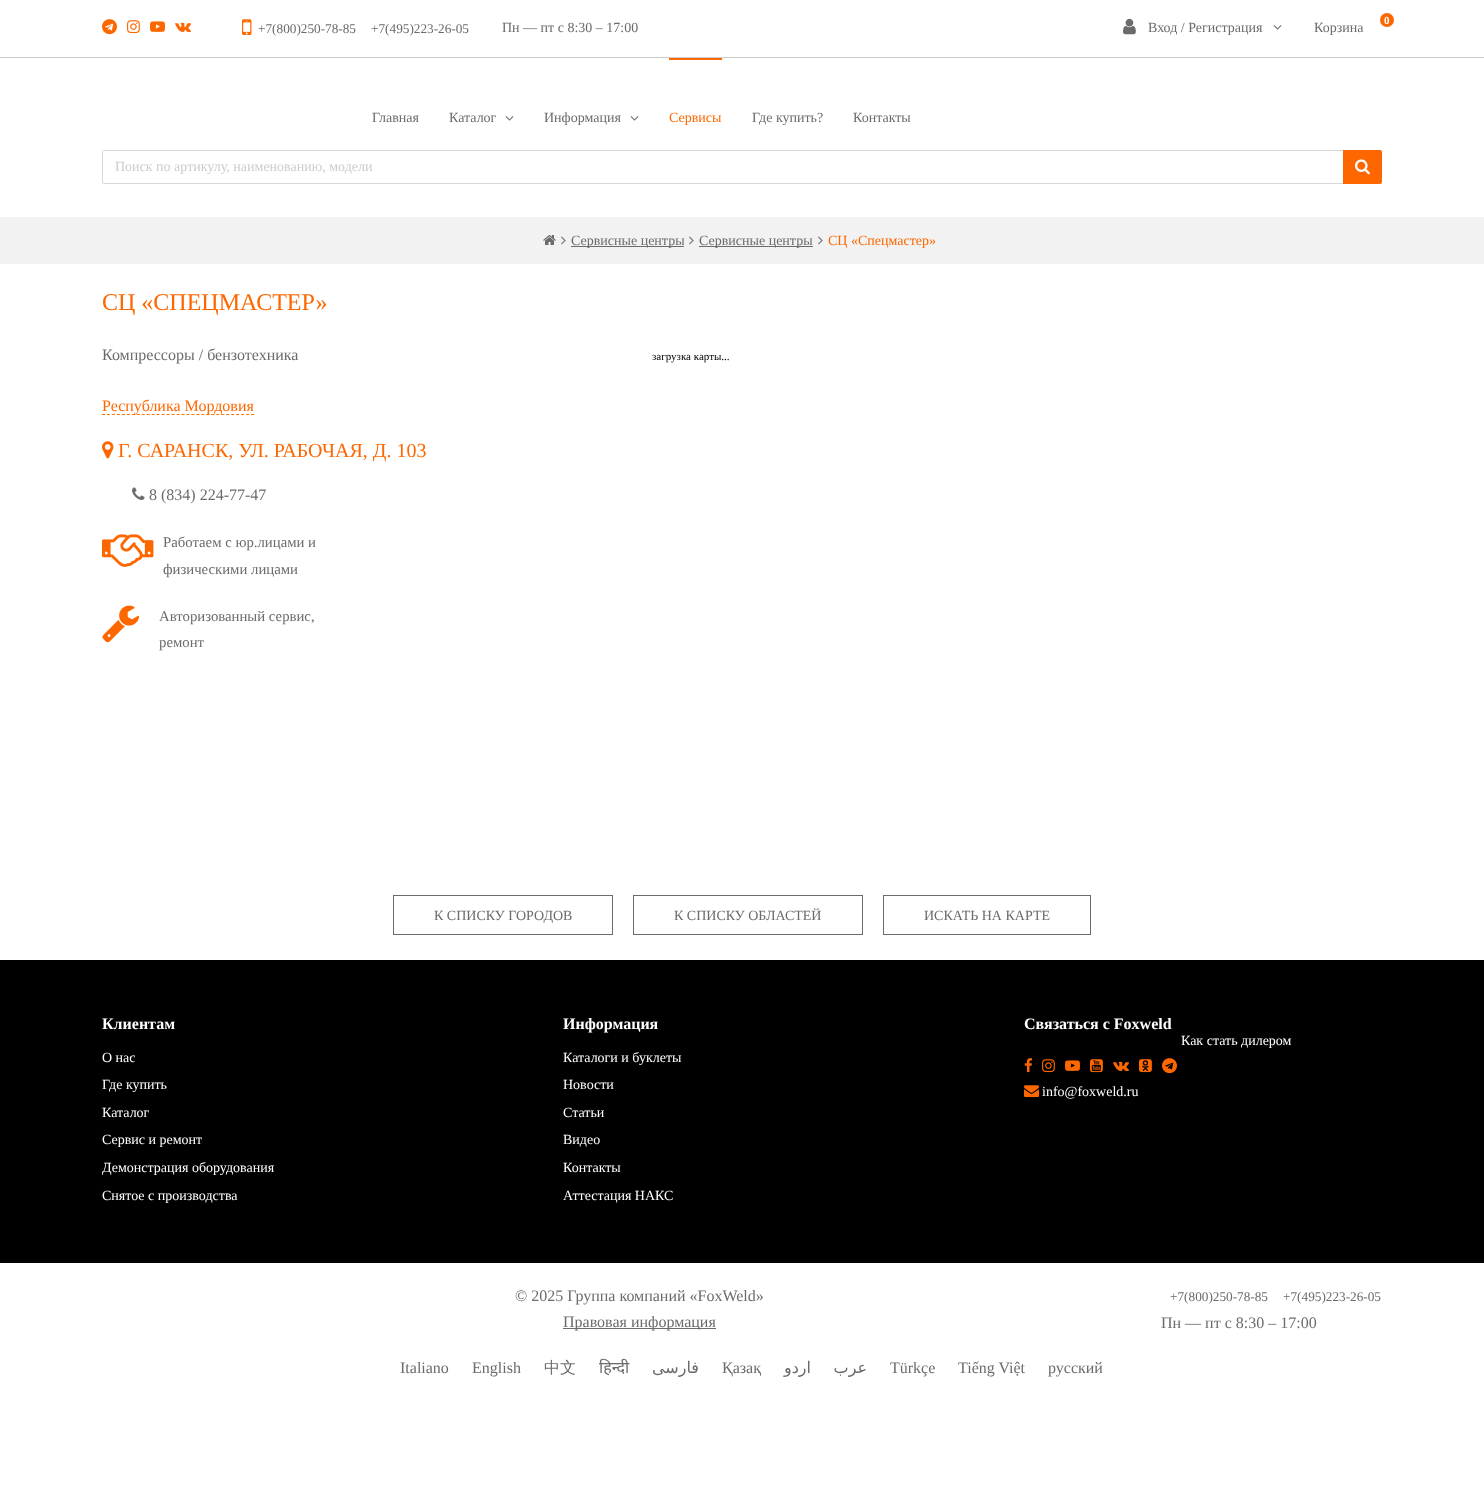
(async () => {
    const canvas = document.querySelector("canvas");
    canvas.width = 1484;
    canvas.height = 1499;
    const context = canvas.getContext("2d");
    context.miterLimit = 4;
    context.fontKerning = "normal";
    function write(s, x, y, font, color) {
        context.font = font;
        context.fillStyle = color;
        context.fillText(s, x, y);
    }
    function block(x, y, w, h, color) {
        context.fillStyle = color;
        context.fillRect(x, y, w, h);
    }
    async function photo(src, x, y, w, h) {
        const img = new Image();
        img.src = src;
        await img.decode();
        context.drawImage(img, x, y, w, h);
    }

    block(0, 0, 1484, 1499, "rgb(255, 255, 255)");
    block(0, 57, 1484, 1, "rgb(204, 204, 204)");
    await photo("media/1.png", 102, 19, 15, 16);
    await photo("media/2.png", 127, 20, 13, 14);
    await photo("media/3.png", 150, 21, 15, 11);
    await photo("media/4.png", 175, 22, 16, 10);
    await photo("media/5.png", 242, 19, 10, 16);
    write("+7(800)250-78-85", 258, 33, "13.25px Liberation Serif", "rgb(107, 107, 107)");
    write("+7(495)223-26-05", 371, 33, "13.25px Liberation Serif", "rgb(107, 107, 107)");
    write("Пн — пт с 8:30 – 17:00", 502, 32, "14px Liberation Serif", "rgb(107, 107, 107)");
    await photo("media/6.png", 1123, 18, 13, 17);
    write("Вход / Регистрация", 1148, 32, "14px Liberation Serif", "rgb(107, 107, 107)");
    await photo("media/7.png", 1273, 25, 9, 5);
    context.fillStyle = "rgb(254, 103, 0)";
    context.beginPath();
    context.arc(1387, 20, 7, 0, Math.PI * 2);
    context.fill();
    write("0", 1384, 24, "bold 11px Liberation Serif", "rgb(255, 255, 255)");
    write("Корзина", 1314, 32, "14px Liberation Serif", "rgb(107, 107, 107)");
    write("Главная", 372, 122, "14px Liberation Serif", "rgb(107, 107, 107)");
    write("Каталог", 449, 122, "14px Liberation Serif", "rgb(107, 107, 107)");
    await photo("media/7.png", 505, 116, 9, 5);
    write("Информация", 544, 122, "14px Liberation Serif", "rgb(107, 107, 107)");
    await photo("media/7.png", 630, 116, 9, 5);
    block(669, 58, 53, 2, "rgb(254, 103, 0)");
    write("Сервисы", 669, 122, "14px Liberation Serif", "rgb(254, 103, 0)");
    write("Где купить?", 752, 122, "14px Liberation Serif", "rgb(107, 107, 107)");
    write("Контакты", 853, 122, "14px Liberation Serif", "rgb(107, 107, 107)");
    block(103, 150, 1240, 1, "rgb(213, 218, 220)");
    block(103, 183, 1240, 1, "rgb(213, 218, 220)");
    block(102, 151, 1, 32, "rgb(213, 218, 220)");
    write("Поиск по артикулу, наименованию, модели", 115, 171, "14px Liberation Serif", "rgb(204, 204, 204)");
    context.fillStyle = "rgb(254, 103, 0)";
    context.beginPath();
    context.roundRect(1343, 150, 39, 34, [0, 2, 2, 0]);
    context.fill();
    await photo("media/8.png", 1355, 159, 15, 16);
    block(0, 217, 1484, 47, "rgb(242, 242, 242)");
    await photo("media/9.png", 543, 235, 13, 10);
    await photo("media/10.png", 561, 236, 5, 9);
    block(571, 246, 113, 1, "rgb(107, 107, 107)");
    write("Сервисные центры", 571, 245, "14px Liberation Serif", "rgb(107, 107, 107)");
    await photo("media/10.png", 689, 236, 5, 9);
    block(699, 246, 114, 1, "rgb(107, 107, 107)");
    write("Сервисные центры", 699, 245, "14px Liberation Serif", "rgb(107, 107, 107)");
    await photo("media/10.png", 818, 236, 5, 9);
    write("СЦ «Спецмастер»", 828, 245, "14px Liberation Serif", "rgb(254, 103, 0)");
    write("СЦ «СПЕЦМАСТЕР»", 102, 310, "24px Liberation Serif", "rgb(254, 103, 0)");
    write("Компрессоры / бензотехника", 102, 360, "16px Liberation Serif", "rgb(107, 107, 107)");
    context.beginPath();
    context.moveTo(102, 414.5);
    context.lineTo(254, 414.5);
    context.strokeStyle = "rgb(255, 115, 0)";
    context.setLineDash([3, 1.97]);
    context.stroke();
    write("Республика Мордовия", 102, 411, "16px Liberation Serif", "rgb(254, 103, 0)");
    await photo("media/11.png", 102, 441, 12, 18);
    write("Г. САРАНСК, УЛ. РАБОЧАЯ, Д. 103", 118, 457, "20px Liberation Serif", "rgb(254, 103, 0)");
    await photo("media/12.png", 132, 487, 13, 13);
    write("8 (834) 224-77-47", 149, 500, "16px Liberation Serif", "rgb(107, 107, 107)");
    await photo("media/13.png", 102, 534, 52, 33);
    write("Работаем с юр.лицами и", 163, 547, "14.75px Liberation Serif", "rgb(107, 107, 107)");
    write("физическими лицами", 163, 574, "14.75px Liberation Serif", "rgb(107, 107, 107)");
    await photo("media/14.png", 102, 605, 38, 38);
    write("Авторизованный сервис,", 159, 621, "14.75px Liberation Serif", "rgb(107, 107, 107)");
    write("ремонт", 159, 647, "14.75px Liberation Serif", "rgb(107, 107, 107)");
    write("загрузка карты...", 652, 360, "11px Liberation Serif", "rgb(0, 0, 0)");
    context.strokeStyle = "rgb(107, 107, 107)";
    context.setLineDash([]);
    context.strokeRect(393.5, 895.5, 219, 39);
    write("К СПИСКУ ГОРОДОВ", 434, 920, "14px Liberation Serif", "rgb(107, 107, 107)");
    context.strokeRect(633.5, 895.5, 229, 39);
    write("К СПИСКУ ОБЛАСТЕЙ", 674, 920, "14px Liberation Serif", "rgb(107, 107, 107)");
    context.strokeRect(883.5, 895.5, 207, 39);
    write("ИСКАТЬ НА КАРТЕ", 924, 920, "14px Liberation Serif", "rgb(107, 107, 107)");
    block(0, 960, 1484, 303, "rgb(0, 0, 0)");
    write("Клиентам", 102, 1029, "bold 16px Liberation Serif", "rgb(255, 255, 255)");
    write("О нас", 102, 1062, "14px Liberation Serif", "rgb(255, 255, 255)");
    write("Где купить", 102, 1089, "14px Liberation Serif", "rgb(255, 255, 255)");
    write("Каталог", 102, 1117, "14px Liberation Serif", "rgb(255, 255, 255)");
    write("Сервис и ремонт", 102, 1144, "14px Liberation Serif", "rgb(255, 255, 255)");
    write("Демонстрация оборудования", 102, 1172, "14px Liberation Serif", "rgb(255, 255, 255)");
    write("Снятое с производства", 102, 1200, "14px Liberation Serif", "rgb(255, 255, 255)");
    write("Информация", 563, 1029, "bold 16px Liberation Serif", "rgb(255, 255, 255)");
    write("Каталоги и буклеты", 563, 1062, "14px Liberation Serif", "rgb(255, 255, 255)");
    write("Новости", 563, 1089, "14px Liberation Serif", "rgb(255, 255, 255)");
    write("Статьи", 563, 1117, "14px Liberation Serif", "rgb(255, 255, 255)");
    write("Видео", 563, 1144, "14px Liberation Serif", "rgb(255, 255, 255)");
    write("Контакты", 563, 1172, "14px Liberation Serif", "rgb(255, 255, 255)");
    write("Аттестация НАКС", 563, 1200, "14px Liberation Serif", "rgb(255, 255, 255)");
    write("Связаться с Foxweld", 1024, 1029, "bold 16px Liberation Serif", "rgb(255, 255, 255)");
    write("Как стать дилером", 1181, 1045, "14px Liberation Serif", "rgb(255, 255, 255)");
    await photo("media/15.png", 1024, 1058, 9, 15);
    await photo("media/16.png", 1042, 1059, 13, 14);
    await photo("media/17.png", 1065, 1060, 15, 11);
    await photo("media/18.png", 1090, 1059, 13, 14);
    await photo("media/19.png", 1113, 1061, 16, 10);
    await photo("media/20.png", 1139, 1059, 13, 14);
    await photo("media/21.png", 1162, 1058, 15, 16);
    await photo("media/22.png", 1024, 1085, 15, 13);
    write("info@foxweld.ru", 1042, 1096, "14px Liberation Serif", "rgb(255, 255, 255)");
    write("© 2025 Группа компаний «FoxWeld»", 515, 1301, "16px Liberation Serif", "rgb(107, 107, 107)");
    block(563, 1328, 153, 1, "rgb(107, 107, 107)");
    write("Правовая информация", 563, 1327, "16px Liberation Serif", "rgb(107, 107, 107)");
    write("+7(800)250-78-85", 1170, 1301, "13.25px Liberation Serif", "rgb(107, 107, 107)");
    write("+7(495)223-26-05", 1283, 1301, "13.25px Liberation Serif", "rgb(107, 107, 107)");
    write("Пн — пт с 8:30 – 17:00", 1161, 1328, "16px Liberation Serif", "rgb(107, 107, 107)");
    write("Italiano", 400, 1373, "16px Liberation Serif", "rgb(107, 107, 107)");
    write("English", 472, 1373, "16px Liberation Serif", "rgb(107, 107, 107)");
    write("中文", 544, 1373, "500 16px WenQuanYi Zen Hei", "rgb(107, 107, 107)");
    write("हिन्दी", 599, 1373, "16px Noto Sans", "rgb(107, 107, 107)");
    context.direction = "rtl";
    write("فارسی", 699, 1373, "16px DejaVu Sans", "rgb(107, 107, 107)");
    context.direction = "ltr";
    write("Қазақ", 722, 1373, "16px Liberation Serif", "rgb(107, 107, 107)");
    context.direction = "rtl";
    write("اردو", 811, 1373, "16px DejaVu Sans", "rgb(107, 107, 107)");
    write("عرب", 867, 1373, "16px DejaVu Sans", "rgb(107, 107, 107)");
    context.direction = "ltr";
    write("Türkçe", 890, 1373, "16px Liberation Serif", "rgb(107, 107, 107)");
    write("Tiếng Việt", 958, 1373, "16px Liberation Serif", "rgb(107, 107, 107)");
    write("русский", 1048, 1373, "16px Liberation Serif", "rgb(107, 107, 107)");
})();
